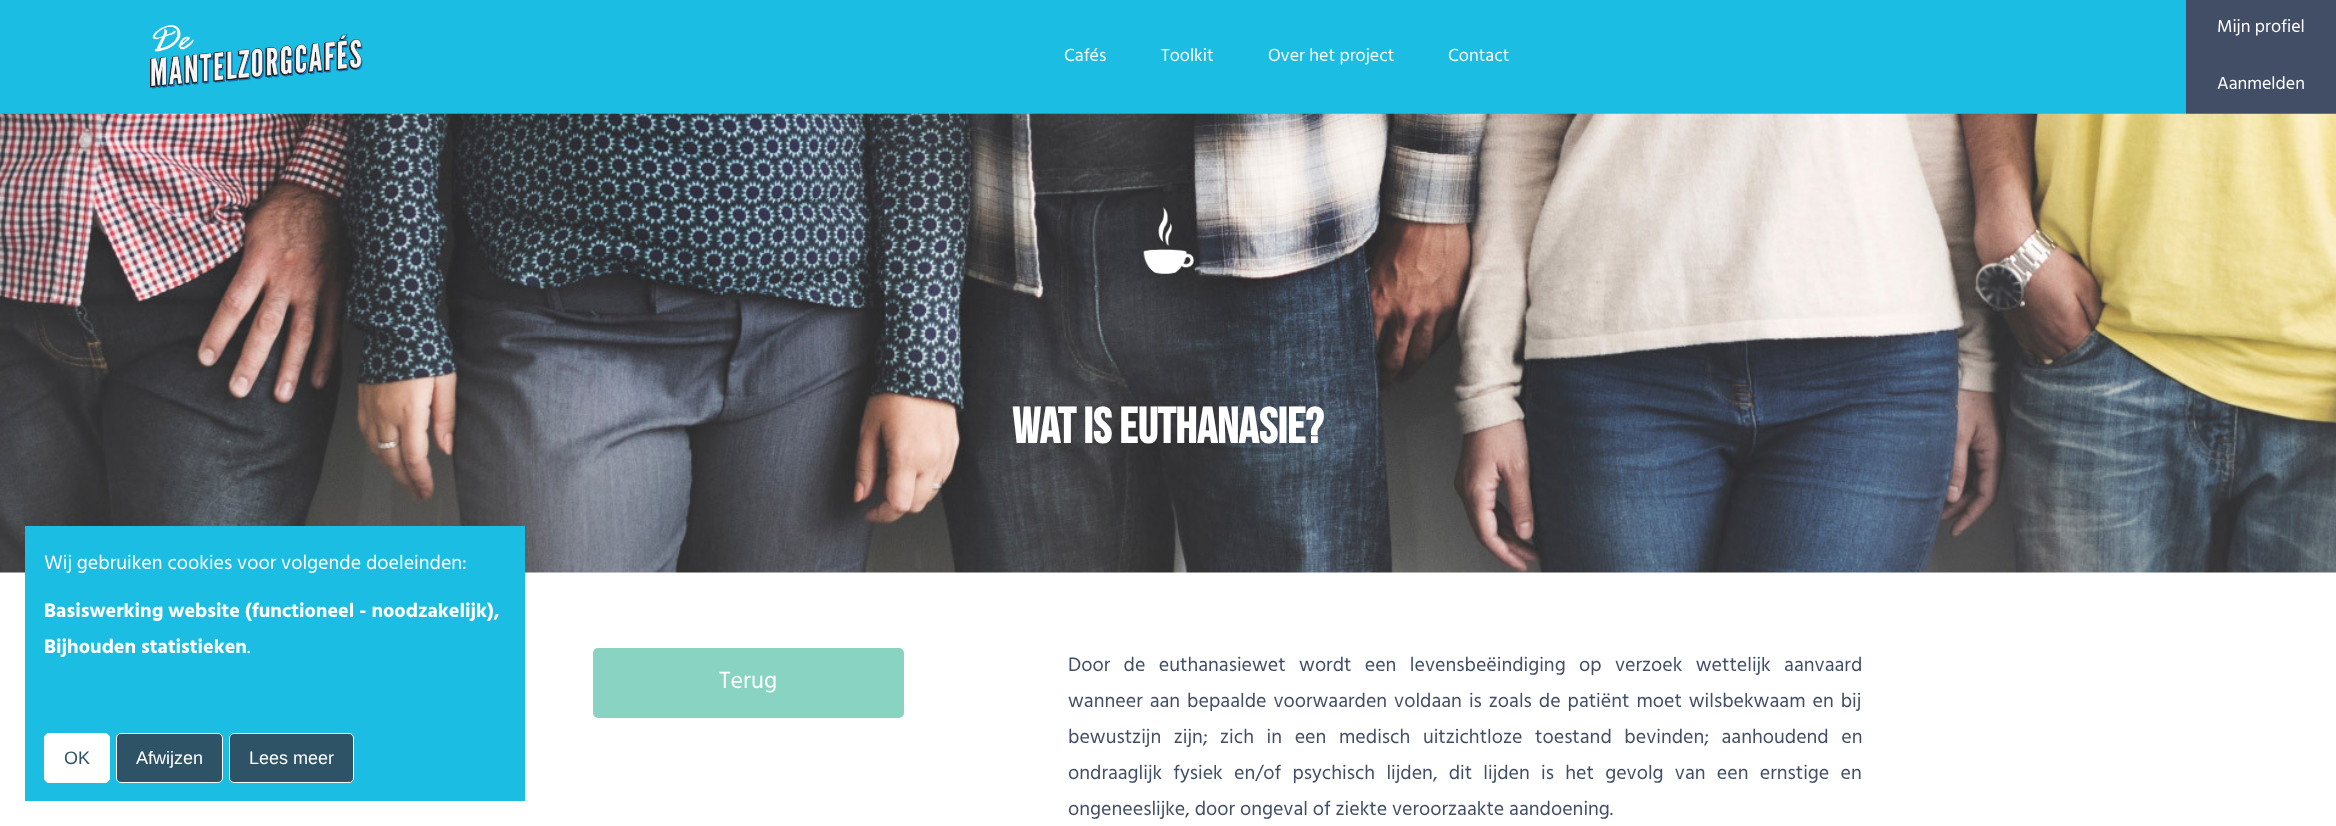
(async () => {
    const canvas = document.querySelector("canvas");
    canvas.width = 2336;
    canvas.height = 826;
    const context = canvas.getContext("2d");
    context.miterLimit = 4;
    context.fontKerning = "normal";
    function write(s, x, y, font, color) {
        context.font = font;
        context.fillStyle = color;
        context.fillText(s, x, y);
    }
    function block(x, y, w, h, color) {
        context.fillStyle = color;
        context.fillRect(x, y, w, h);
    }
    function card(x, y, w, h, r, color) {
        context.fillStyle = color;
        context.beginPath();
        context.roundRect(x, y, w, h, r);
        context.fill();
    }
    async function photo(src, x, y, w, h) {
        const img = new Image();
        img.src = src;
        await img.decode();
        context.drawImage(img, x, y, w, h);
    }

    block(0, 0, 2336, 826, "rgb(255, 255, 255)");
    block(0, 0, 2186, 114, "rgb(27, 189, 226)");
    await photo("media/1.png", 150, 25, 213, 64);
    write("Cafés", 1064, 61, "18px Hind Madurai", "rgb(255, 255, 255)");
    write("Toolkit", 1161, 61, "18px Hind Madurai", "rgb(255, 255, 255)");
    write("Over het project", 1268, 61, "18px Hind Madurai", "rgb(255, 255, 255)");
    write("Contact", 1448, 61, "18px Hind Madurai", "rgb(255, 255, 255)");
    block(2186, 0, 150, 114, "rgb(65, 78, 101)");
    write("Mijn profiel", 2217, 32, "18px Hind Madurai", "rgb(255, 255, 255)");
    write("Aanmelden", 2217, 89, "18px Hind Madurai", "rgb(255, 255, 255)");
    await photo("media/2.png", 0, 113, 2336, 460);
    block(25, 526, 500, 275, "rgb(27, 189, 226)");
    write("Wij gebruiken cookies voor volgende doeleinden:", 44, 569, "20px Hind Madurai", "rgb(255, 255, 255)");
    write("Basiswerking website (functioneel - noodzakelijk),", 44, 617, "bold 20px Hind Madurai", "rgb(255, 255, 255)");
    write("Bijhouden statistieken", 44, 653, "bold 20px Hind Madurai", "rgb(255, 255, 255)");
    write(".", 247, 653, "20px Hind Madurai", "rgb(255, 255, 255)");
    context.beginPath();
    context.roundRect(44.5, 733.5, 65, 49, 4.5);
    context.fill();
    context.strokeStyle = "rgb(255, 255, 255)";
    context.stroke();
    write("OK", 64, 764, "18px Liberation Sans", "rgb(46, 82, 102)");
    context.beginPath();
    context.roundRect(116.5, 733.5, 106, 49, 4.5);
    context.fill();
    context.stroke();
    write("Afwijzen", 136, 764, "18px Liberation Sans", "rgb(255, 255, 255)");
    context.fillStyle = "rgb(46, 82, 102)";
    context.beginPath();
    context.roundRect(229.5, 733.5, 124, 49, 4.5);
    context.fill();
    context.stroke();
    write("Lees meer", 249, 764, "18px Liberation Sans", "rgb(255, 255, 255)");
    await photo("media/3.png", 1143, 207, 51, 67);
    write("WAT IS EUTHANASIE?", 1012, 443, "bold 50px Bebas Neue", "rgb(255, 255, 255)");
    card(593, 648, 311, 70, 5, "rgb(137, 211, 194)");
    write("Terug", 719, 688, "24px Hind Madurai", "rgb(255, 255, 255)");
    context.wordSpacing = "8.5px";
    write("Door de euthanasiewet wordt een levensbeëindiging op verzoek wettelijk aanvaard", 1068, 671, "20px Hind Madurai", "rgb(65, 78, 101)");
    context.wordSpacing = "2.1px";
    write("wanneer aan bepaalde voorwaarden voldaan is zoals de patiënt moet wilsbekwaam en bij", 1068, 707, "20px Hind Madurai", "rgb(65, 78, 101)");
    context.wordSpacing = "7.75px";
    write("bewustzijn zijn; zich in een medisch uitzichtloze toestand bevinden; aanhoudend en", 1068, 743, "20px Hind Madurai", "rgb(65, 78, 101)");
    context.wordSpacing = "6.4px";
    write("ondraaglijk fysiek en/of psychisch lijden, dit lijden is het gevolg van een ernstige en", 1068, 779, "20px Hind Madurai", "rgb(65, 78, 101)");
    context.wordSpacing = "0px";
    write("ongeneeslijke, door ongeval of ziekte veroorzaakte aandoening.", 1068, 815, "20px Hind Madurai", "rgb(65, 78, 101)");
})();
